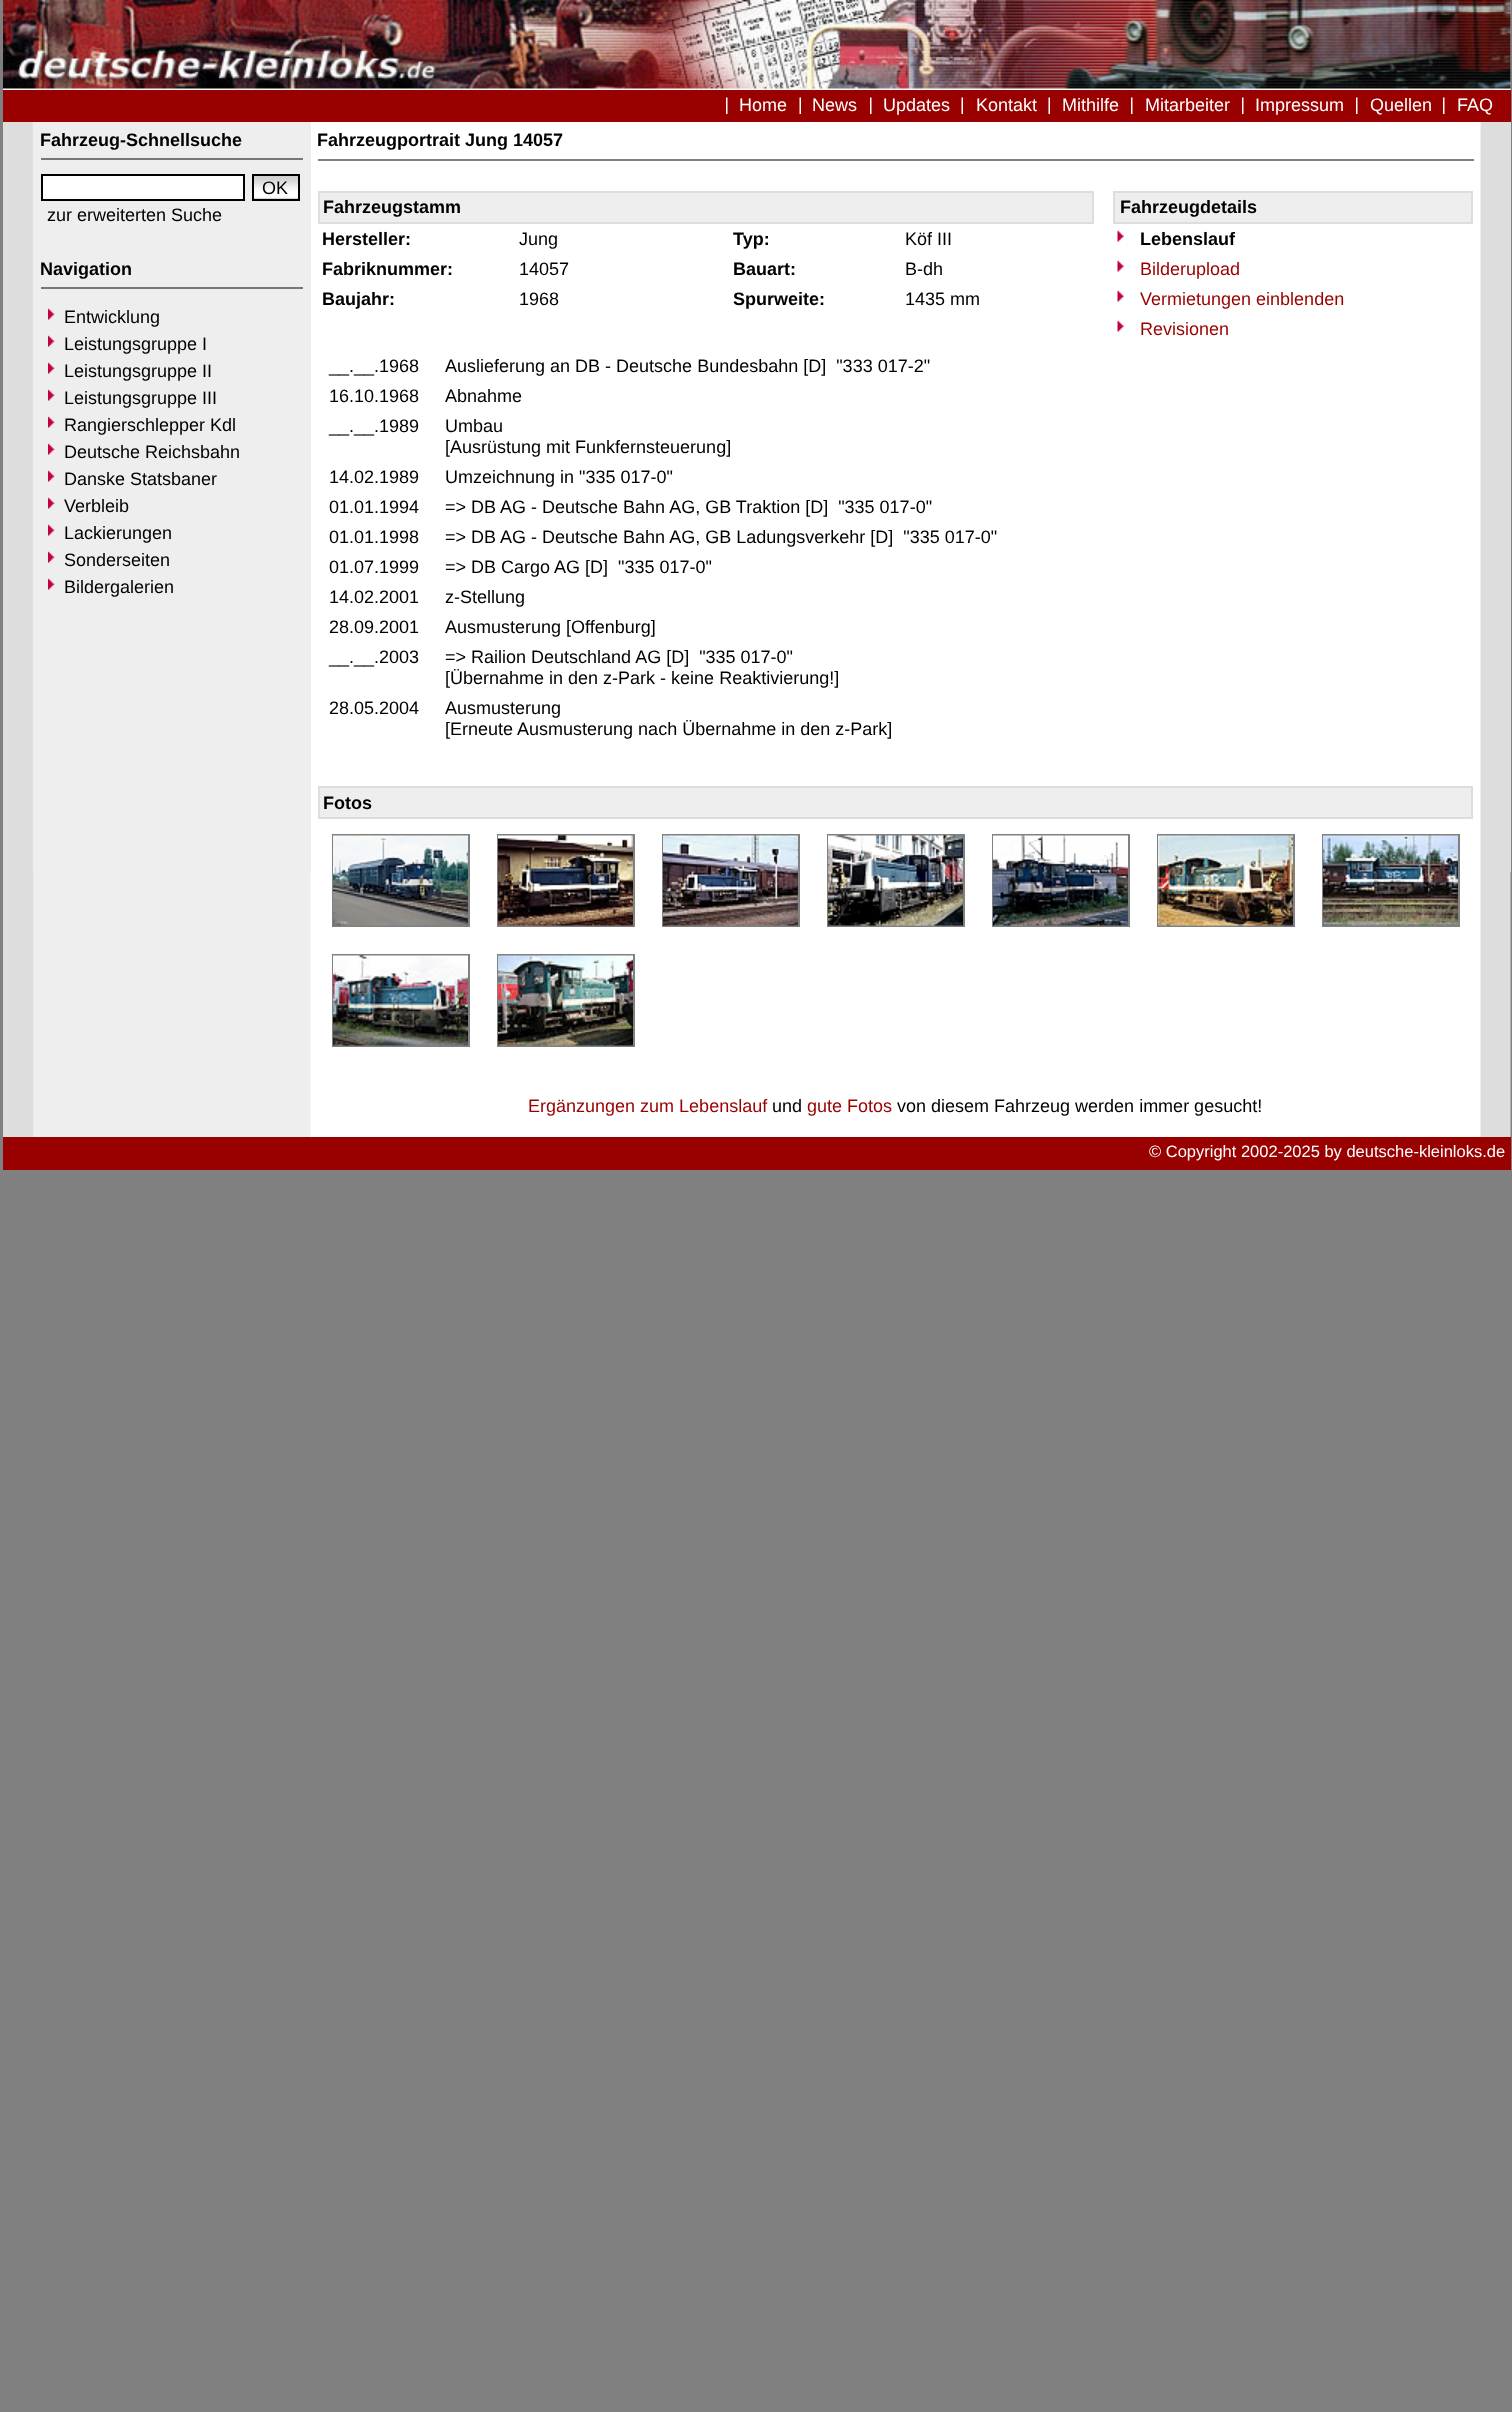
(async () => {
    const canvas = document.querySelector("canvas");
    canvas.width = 1512;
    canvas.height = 2412;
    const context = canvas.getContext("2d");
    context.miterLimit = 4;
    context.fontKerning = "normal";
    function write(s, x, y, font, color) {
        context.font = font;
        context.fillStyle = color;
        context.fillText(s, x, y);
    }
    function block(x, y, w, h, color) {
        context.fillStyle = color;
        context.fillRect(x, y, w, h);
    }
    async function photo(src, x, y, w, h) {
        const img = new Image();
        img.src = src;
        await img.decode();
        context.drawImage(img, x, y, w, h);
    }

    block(0, 0, 1512, 2412, "rgb(128, 128, 128)");
    await photo("media/1.png", 3, 0, 1508, 1137);
    await photo("media/2.png", 3, 0, 1508, 90);
    block(3, 90, 1508, 32, "rgb(153, 0, 0)");
    await photo("media/3.png", 726, 97, 2, 17);
    write("Home", 739, 111, "18px Liberation Sans", "rgb(255, 255, 255)");
    await photo("media/4.png", 799, 97, 2, 17);
    write("News", 812, 111, "18px Liberation Sans", "rgb(255, 255, 255)");
    await photo("media/3.png", 870, 97, 2, 17);
    write("Updates", 883, 111, "18px Liberation Sans", "rgb(255, 255, 255)");
    await photo("media/4.png", 961, 97, 2, 17);
    write("Kontakt", 976, 111, "18px Liberation Sans", "rgb(255, 255, 255)");
    await photo("media/4.png", 1048, 97, 2, 17);
    write("Mithilfe", 1062, 111, "18px Liberation Sans", "rgb(255, 255, 255)");
    await photo("media/3.png", 1131, 97, 2, 17);
    write("Mitarbeiter", 1145, 111, "18px Liberation Sans", "rgb(255, 255, 255)");
    await photo("media/3.png", 1242, 97, 2, 17);
    write("Impressum", 1255, 111, "18px Liberation Sans", "rgb(255, 255, 255)");
    await photo("media/3.png", 1356, 97, 2, 17);
    write("Quellen", 1370, 111, "18px Liberation Sans", "rgb(255, 255, 255)");
    await photo("media/3.png", 1443, 97, 2, 17);
    write("FAQ", 1457, 111, "18px Liberation Sans", "rgb(255, 255, 255)");
    block(33, 122, 278, 750, "rgb(238, 238, 238)");
    block(41, 158, 262, 2, "rgb(119, 119, 119)");
    write("Fahrzeug-Schnellsuche", 40, 146, "bold 18px Liberation Sans", "rgb(0, 0, 0)");
    context.fillStyle = "rgb(255, 255, 255)";
    context.beginPath();
    context.rect(42, 175, 202, 25);
    context.fill();
    context.strokeStyle = "rgb(0, 0, 0)";
    context.lineWidth = 2;
    context.stroke();
    await photo("media/5.png", 254, 176, 44, 23);
    context.strokeRect(253, 175, 46, 25);
    write("OK", 262, 194, "18px Liberation Sans", "rgb(0, 0, 0)");
    write("zur erweiterten Suche", 47, 221, "18px Liberation Sans", "rgb(0, 0, 0)");
    block(41, 287, 262, 2, "rgb(119, 119, 119)");
    write("Navigation", 40, 275, "bold 18px Liberation Sans", "rgb(0, 0, 0)");
    await photo("media/6.png", 48, 308, 7, 12);
    write("Entwicklung", 64, 323, "18px Liberation Sans", "rgb(0, 0, 0)");
    await photo("media/6.png", 48, 335, 7, 12);
    write("Leistungsgruppe I", 64, 350, "18px Liberation Sans", "rgb(0, 0, 0)");
    await photo("media/6.png", 48, 362, 7, 12);
    write("Leistungsgruppe II", 64, 377, "18px Liberation Sans", "rgb(0, 0, 0)");
    await photo("media/6.png", 48, 389, 7, 12);
    write("Leistungsgruppe III", 64, 404, "18px Liberation Sans", "rgb(0, 0, 0)");
    await photo("media/6.png", 48, 416, 7, 12);
    write("Rangierschlepper Kdl", 64, 431, "18px Liberation Sans", "rgb(0, 0, 0)");
    await photo("media/6.png", 48, 443, 7, 12);
    write("Deutsche Reichsbahn", 64, 458, "18px Liberation Sans", "rgb(0, 0, 0)");
    await photo("media/6.png", 48, 470, 7, 12);
    write("Danske Statsbaner", 64, 485, "18px Liberation Sans", "rgb(0, 0, 0)");
    await photo("media/6.png", 48, 497, 7, 12);
    write("Verbleib", 64, 512, "18px Liberation Sans", "rgb(0, 0, 0)");
    await photo("media/6.png", 48, 524, 7, 12);
    write("Lackierungen", 64, 539, "18px Liberation Sans", "rgb(0, 0, 0)");
    await photo("media/6.png", 48, 551, 7, 12);
    write("Sonderseiten", 64, 566, "18px Liberation Sans", "rgb(0, 0, 0)");
    await photo("media/6.png", 48, 578, 7, 12);
    write("Bildergalerien", 64, 593, "18px Liberation Sans", "rgb(0, 0, 0)");
    write("Fahrzeugportrait Jung 14057", 317, 146, "bold 18px Liberation Sans", "rgb(0, 0, 0)");
    block(318, 159, 1156, 2, "rgb(128, 128, 128)");
    context.fillStyle = "rgb(238, 238, 238)";
    context.beginPath();
    context.rect(319, 192, 774, 31);
    context.fill();
    context.strokeStyle = "rgb(221, 221, 221)";
    context.stroke();
    write("Fahrzeugstamm", 323, 213, "bold 18px Liberation Sans", "rgb(0, 0, 0)");
    context.fillStyle = "rgb(238, 238, 238)";
    context.beginPath();
    context.rect(1114, 192, 358, 31);
    context.fill();
    context.stroke();
    write("Fahrzeugdetails", 1120, 213, "bold 18px Liberation Sans", "rgb(0, 0, 0)");
    write("Hersteller:", 322, 245, "bold 18px Liberation Sans", "rgb(0, 0, 0)");
    write("Jung", 519, 245, "18px Liberation Sans", "rgb(0, 0, 0)");
    write("Typ:", 733, 245, "bold 18px Liberation Sans", "rgb(0, 0, 0)");
    write("Köf III", 905, 245, "18px Liberation Sans", "rgb(0, 0, 0)");
    await photo("media/7.png", 1117, 230, 7, 12);
    write("Lebenslauf", 1140, 245, "bold 18px Liberation Sans", "rgb(0, 0, 0)");
    write("Fabriknummer:", 322, 275, "bold 18px Liberation Sans", "rgb(0, 0, 0)");
    write("14057", 519, 275, "18px Liberation Sans", "rgb(0, 0, 0)");
    write("Bauart:", 733, 275, "bold 18px Liberation Sans", "rgb(0, 0, 0)");
    write("B-dh", 905, 275, "18px Liberation Sans", "rgb(0, 0, 0)");
    await photo("media/7.png", 1117, 260, 7, 12);
    write("Bilderupload", 1140, 275, "18px Liberation Sans", "rgb(153, 0, 0)");
    write("Baujahr:", 322, 305, "bold 18px Liberation Sans", "rgb(0, 0, 0)");
    write("1968", 519, 305, "18px Liberation Sans", "rgb(0, 0, 0)");
    write("Spurweite:", 733, 305, "bold 18px Liberation Sans", "rgb(0, 0, 0)");
    write("1435 mm", 905, 305, "18px Liberation Sans", "rgb(0, 0, 0)");
    await photo("media/7.png", 1117, 290, 7, 12);
    write("Vermietungen einblenden", 1140, 305, "18px Liberation Sans", "rgb(153, 0, 0)");
    await photo("media/7.png", 1117, 320, 7, 12);
    write("Revisionen", 1140, 335, "18px Liberation Sans", "rgb(153, 0, 0)");
    write("__.__.1968", 329, 372, "18px Liberation Sans", "rgb(0, 0, 0)");
    write("Auslieferung an DB - Deutsche Bundesbahn [D]  \"333 017-2\"", 445, 372, "18px Liberation Sans", "rgb(0, 0, 0)");
    write("16.10.1968", 329, 402, "18px Liberation Sans", "rgb(0, 0, 0)");
    write("Abnahme", 445, 402, "18px Liberation Sans", "rgb(0, 0, 0)");
    write("__.__.1989", 329, 432, "18px Liberation Sans", "rgb(0, 0, 0)");
    write("Umbau", 445, 432, "18px Liberation Sans", "rgb(0, 0, 0)");
    write("[Ausrüstung mit Funkfernsteuerung]", 445, 453, "18px Liberation Sans", "rgb(0, 0, 0)");
    write("14.02.1989", 329, 483, "18px Liberation Sans", "rgb(0, 0, 0)");
    write("Umzeichnung in \"335 017-0\"", 445, 483, "18px Liberation Sans", "rgb(0, 0, 0)");
    write("01.01.1994", 329, 513, "18px Liberation Sans", "rgb(0, 0, 0)");
    write("=> DB AG - Deutsche Bahn AG, GB Traktion [D]  \"335 017-0\"", 445, 513, "18px Liberation Sans", "rgb(0, 0, 0)");
    write("01.01.1998", 329, 543, "18px Liberation Sans", "rgb(0, 0, 0)");
    write("=> DB AG - Deutsche Bahn AG, GB Ladungsverkehr [D]  \"335 017-0\"", 445, 543, "18px Liberation Sans", "rgb(0, 0, 0)");
    write("01.07.1999", 329, 573, "18px Liberation Sans", "rgb(0, 0, 0)");
    write("=> DB Cargo AG [D]  \"335 017-0\"", 445, 573, "18px Liberation Sans", "rgb(0, 0, 0)");
    write("14.02.2001", 329, 603, "18px Liberation Sans", "rgb(0, 0, 0)");
    write("z-Stellung", 445, 603, "18px Liberation Sans", "rgb(0, 0, 0)");
    write("28.09.2001", 329, 633, "18px Liberation Sans", "rgb(0, 0, 0)");
    write("Ausmusterung [Offenburg]", 445, 633, "18px Liberation Sans", "rgb(0, 0, 0)");
    write("__.__.2003", 329, 663, "18px Liberation Sans", "rgb(0, 0, 0)");
    write("=> Railion Deutschland AG [D]  \"335 017-0\"", 445, 663, "18px Liberation Sans", "rgb(0, 0, 0)");
    write("[Übernahme in den z-Park - keine Reaktivierung!]", 445, 684, "18px Liberation Sans", "rgb(0, 0, 0)");
    write("28.05.2004", 329, 714, "18px Liberation Sans", "rgb(0, 0, 0)");
    write("Ausmusterung", 445, 714, "18px Liberation Sans", "rgb(0, 0, 0)");
    write("[Erneute Ausmusterung nach Übernahme in den z-Park]", 445, 735, "18px Liberation Sans", "rgb(0, 0, 0)");
    context.fillStyle = "rgb(238, 238, 238)";
    context.beginPath();
    context.rect(319, 787, 1153, 31);
    context.fill();
    context.stroke();
    write("Fotos", 323, 809, "bold 18px Liberation Sans", "rgb(0, 0, 0)");
    context.strokeStyle = "rgb(128, 128, 128)";
    context.strokeRect(333, 835, 136, 91);
    await photo("media/8.png", 333, 835, 135, 91);
    context.strokeRect(498, 835, 136, 91);
    await photo("media/9.png", 498, 835, 135, 91);
    context.strokeRect(663, 835, 136, 91);
    await photo("media/10.png", 663, 835, 135, 91);
    context.strokeRect(828, 835, 136, 91);
    await photo("media/11.png", 828, 835, 135, 91);
    context.strokeRect(993, 835, 136, 91);
    await photo("media/12.png", 993, 835, 135, 91);
    context.strokeRect(1158, 835, 136, 91);
    await photo("media/13.png", 1158, 835, 135, 91);
    context.strokeRect(1323, 835, 136, 91);
    await photo("media/14.png", 1323, 835, 135, 91);
    context.strokeRect(333, 955, 136, 91);
    await photo("media/15.png", 333, 955, 135, 91);
    context.strokeRect(498, 955, 136, 91);
    await photo("media/16.png", 498, 955, 135, 91);
    write("Ergänzungen zum Lebenslauf", 528, 1112, "18px Liberation Sans", "rgb(153, 0, 0)");
    write("und", 772, 1112, "18px Liberation Sans", "rgb(0, 0, 0)");
    write("gute Fotos", 807, 1112, "18px Liberation Sans", "rgb(153, 0, 0)");
    write("von diesem Fahrzeug werden immer gesucht!", 897, 1112, "18px Liberation Sans", "rgb(0, 0, 0)");
    block(1510, 122, 1, 750, "rgb(221, 221, 221)");
    block(3, 1137, 1508, 33, "rgb(153, 0, 0)");
    write("© Copyright 2002-2025 by deutsche-kleinloks.de", 1149, 1157, "16.5px Liberation Sans", "rgb(255, 255, 255)");
})();
